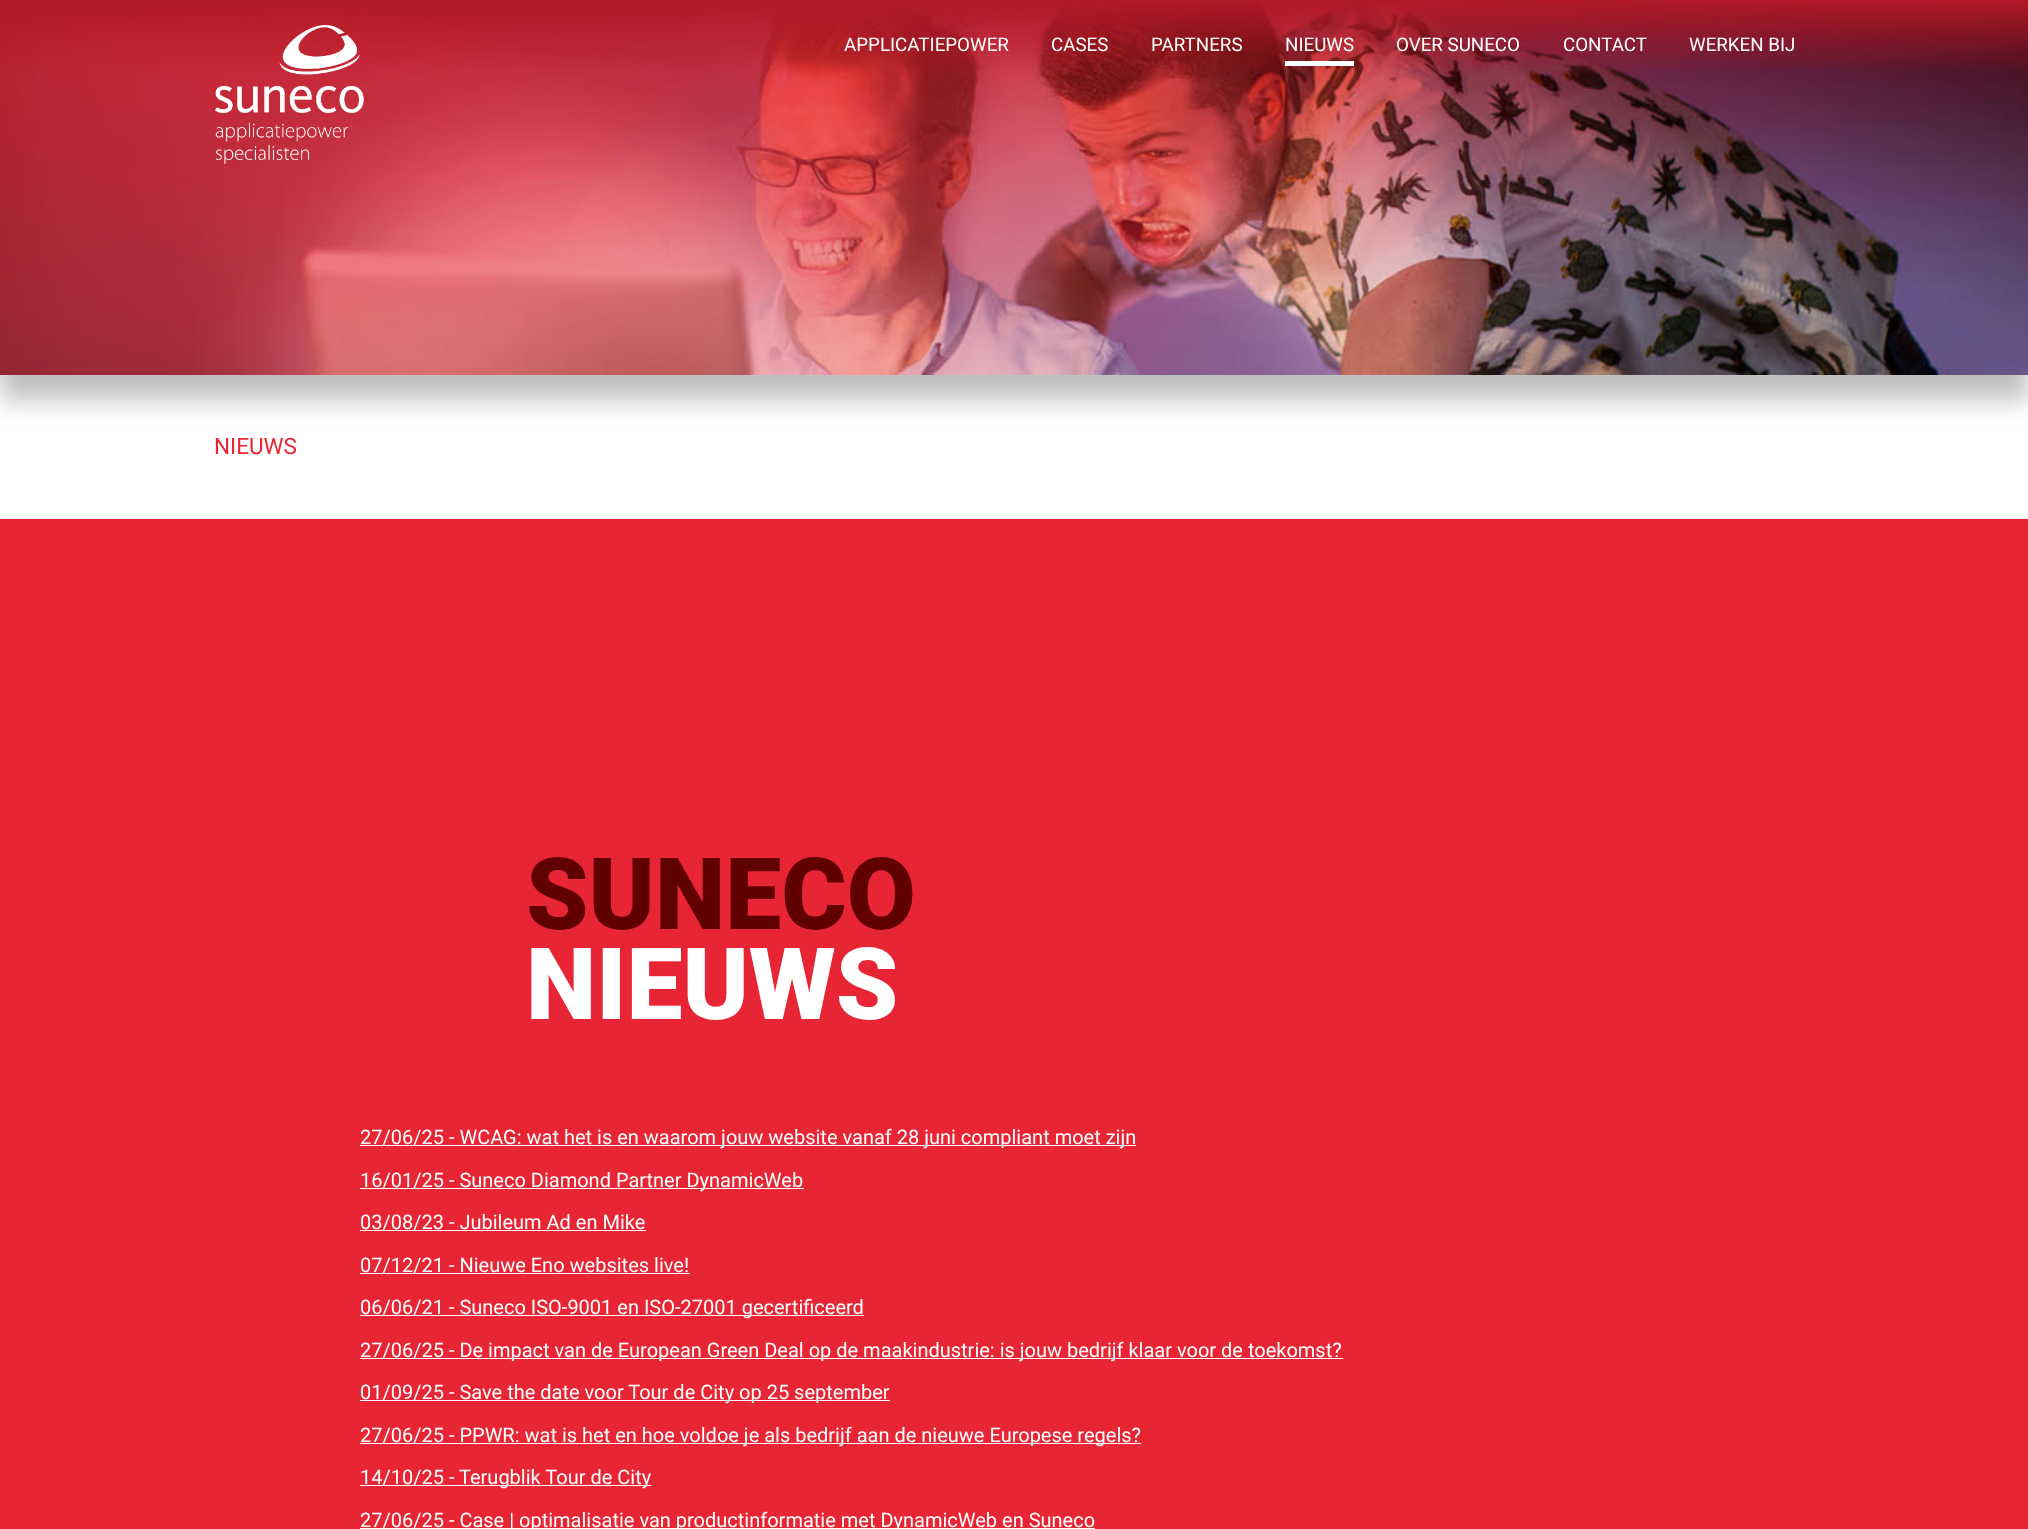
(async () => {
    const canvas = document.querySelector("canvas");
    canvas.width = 2028;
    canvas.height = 1529;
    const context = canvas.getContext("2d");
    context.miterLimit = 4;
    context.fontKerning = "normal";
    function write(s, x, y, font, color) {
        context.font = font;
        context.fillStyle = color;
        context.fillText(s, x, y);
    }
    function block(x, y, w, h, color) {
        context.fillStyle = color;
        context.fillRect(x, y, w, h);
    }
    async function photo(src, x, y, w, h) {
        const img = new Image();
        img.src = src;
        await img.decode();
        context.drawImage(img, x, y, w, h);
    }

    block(0, 0, 2028, 1529, "rgb(255, 255, 255)");
    context.fillStyle = "rgba(0, 0, 0, 0.25)";
    context.filter = "blur(12.5px)";
    context.beginPath();
    context.rect(0, 25, 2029, 375);
    context.fill();
    context.filter = "none";
    await photo("media/2.png", 0, 0, 2028, 375);
    await photo("media/1.png", 215, 25, 149, 139);
    write("APPLICATIEPOWER", 844, 51, "18.75px Roboto", "rgb(255, 255, 255)");
    write("CASES", 1051, 51, "18.75px Roboto", "rgb(255, 255, 255)");
    write("PARTNERS", 1151, 51, "18.75px Roboto", "rgb(255, 255, 255)");
    block(1285, 61, 69, 5, "rgb(255, 255, 255)");
    write("NIEUWS", 1285, 51, "18.75px Roboto", "rgb(255, 255, 255)");
    write("OVER SUNECO", 1396, 51, "18.75px Roboto", "rgb(255, 255, 255)");
    write("CONTACT", 1563, 51, "18.75px Roboto", "rgb(255, 255, 255)");
    write("WERKEN BIJ", 1689, 51, "18.75px Roboto", "rgb(255, 255, 255)");
    write("NIEUWS", 214, 454, "22.5px Roboto", "rgb(232, 37, 53)");
    block(0, 519, 2028, 1010, "rgb(232, 37, 53)");
    write("SUNECO", 526, 929, "900 100px Roboto", "rgb(97, 0, 0)");
    write("NIEUWS", 526, 1019, "900 100px Roboto", "rgb(255, 255, 255)");
    block(360, 1145, 776, 1, "rgb(255, 255, 255)");
    write("27/06/25 - WCAG: wat het is en waarom jouw website vanaf 28 juni compliant moet zijn", 360, 1144, "20px Roboto", "rgb(255, 255, 255)");
    block(360, 1188, 444, 1, "rgb(255, 255, 255)");
    write("16/01/25 - Suneco Diamond Partner DynamicWeb", 360, 1187, "20px Roboto", "rgb(255, 255, 255)");
    block(360, 1230, 286, 1, "rgb(255, 255, 255)");
    write("03/08/23 - Jubileum Ad en Mike", 360, 1229, "20px Roboto", "rgb(255, 255, 255)");
    block(360, 1273, 330, 1, "rgb(255, 255, 255)");
    write("07/12/21 - Nieuwe Eno websites live!", 360, 1272, "20px Roboto", "rgb(255, 255, 255)");
    block(360, 1315, 504, 1, "rgb(255, 255, 255)");
    write("06/06/21 - Suneco ISO-9001 en ISO-27001 gecertificeerd", 360, 1314, "20px Roboto", "rgb(255, 255, 255)");
    block(360, 1358, 983, 1, "rgb(255, 255, 255)");
    write("27/06/25 - De impact van de European Green Deal op de maakindustrie: is jouw bedrijf klaar voor de toekomst?", 360, 1357, "20px Roboto", "rgb(255, 255, 255)");
    block(360, 1400, 530, 1, "rgb(255, 255, 255)");
    write("01/09/25 - Save the date voor Tour de City op 25 september", 360, 1399, "20px Roboto", "rgb(255, 255, 255)");
    block(360, 1443, 781, 1, "rgb(255, 255, 255)");
    write("27/06/25 - PPWR: wat is het en hoe voldoe je als bedrijf aan de nieuwe Europese regels?", 360, 1442, "20px Roboto", "rgb(255, 255, 255)");
    block(360, 1485, 291, 1, "rgb(255, 255, 255)");
    write("14/10/25 - Terugblik Tour de City", 360, 1484, "20px Roboto", "rgb(255, 255, 255)");
    block(360, 1528, 735, 1, "rgb(255, 255, 255)");
    write("27/06/25 - Case | optimalisatie van productinformatie met DynamicWeb en Suneco", 360, 1527, "20px Roboto", "rgb(255, 255, 255)");
})();
